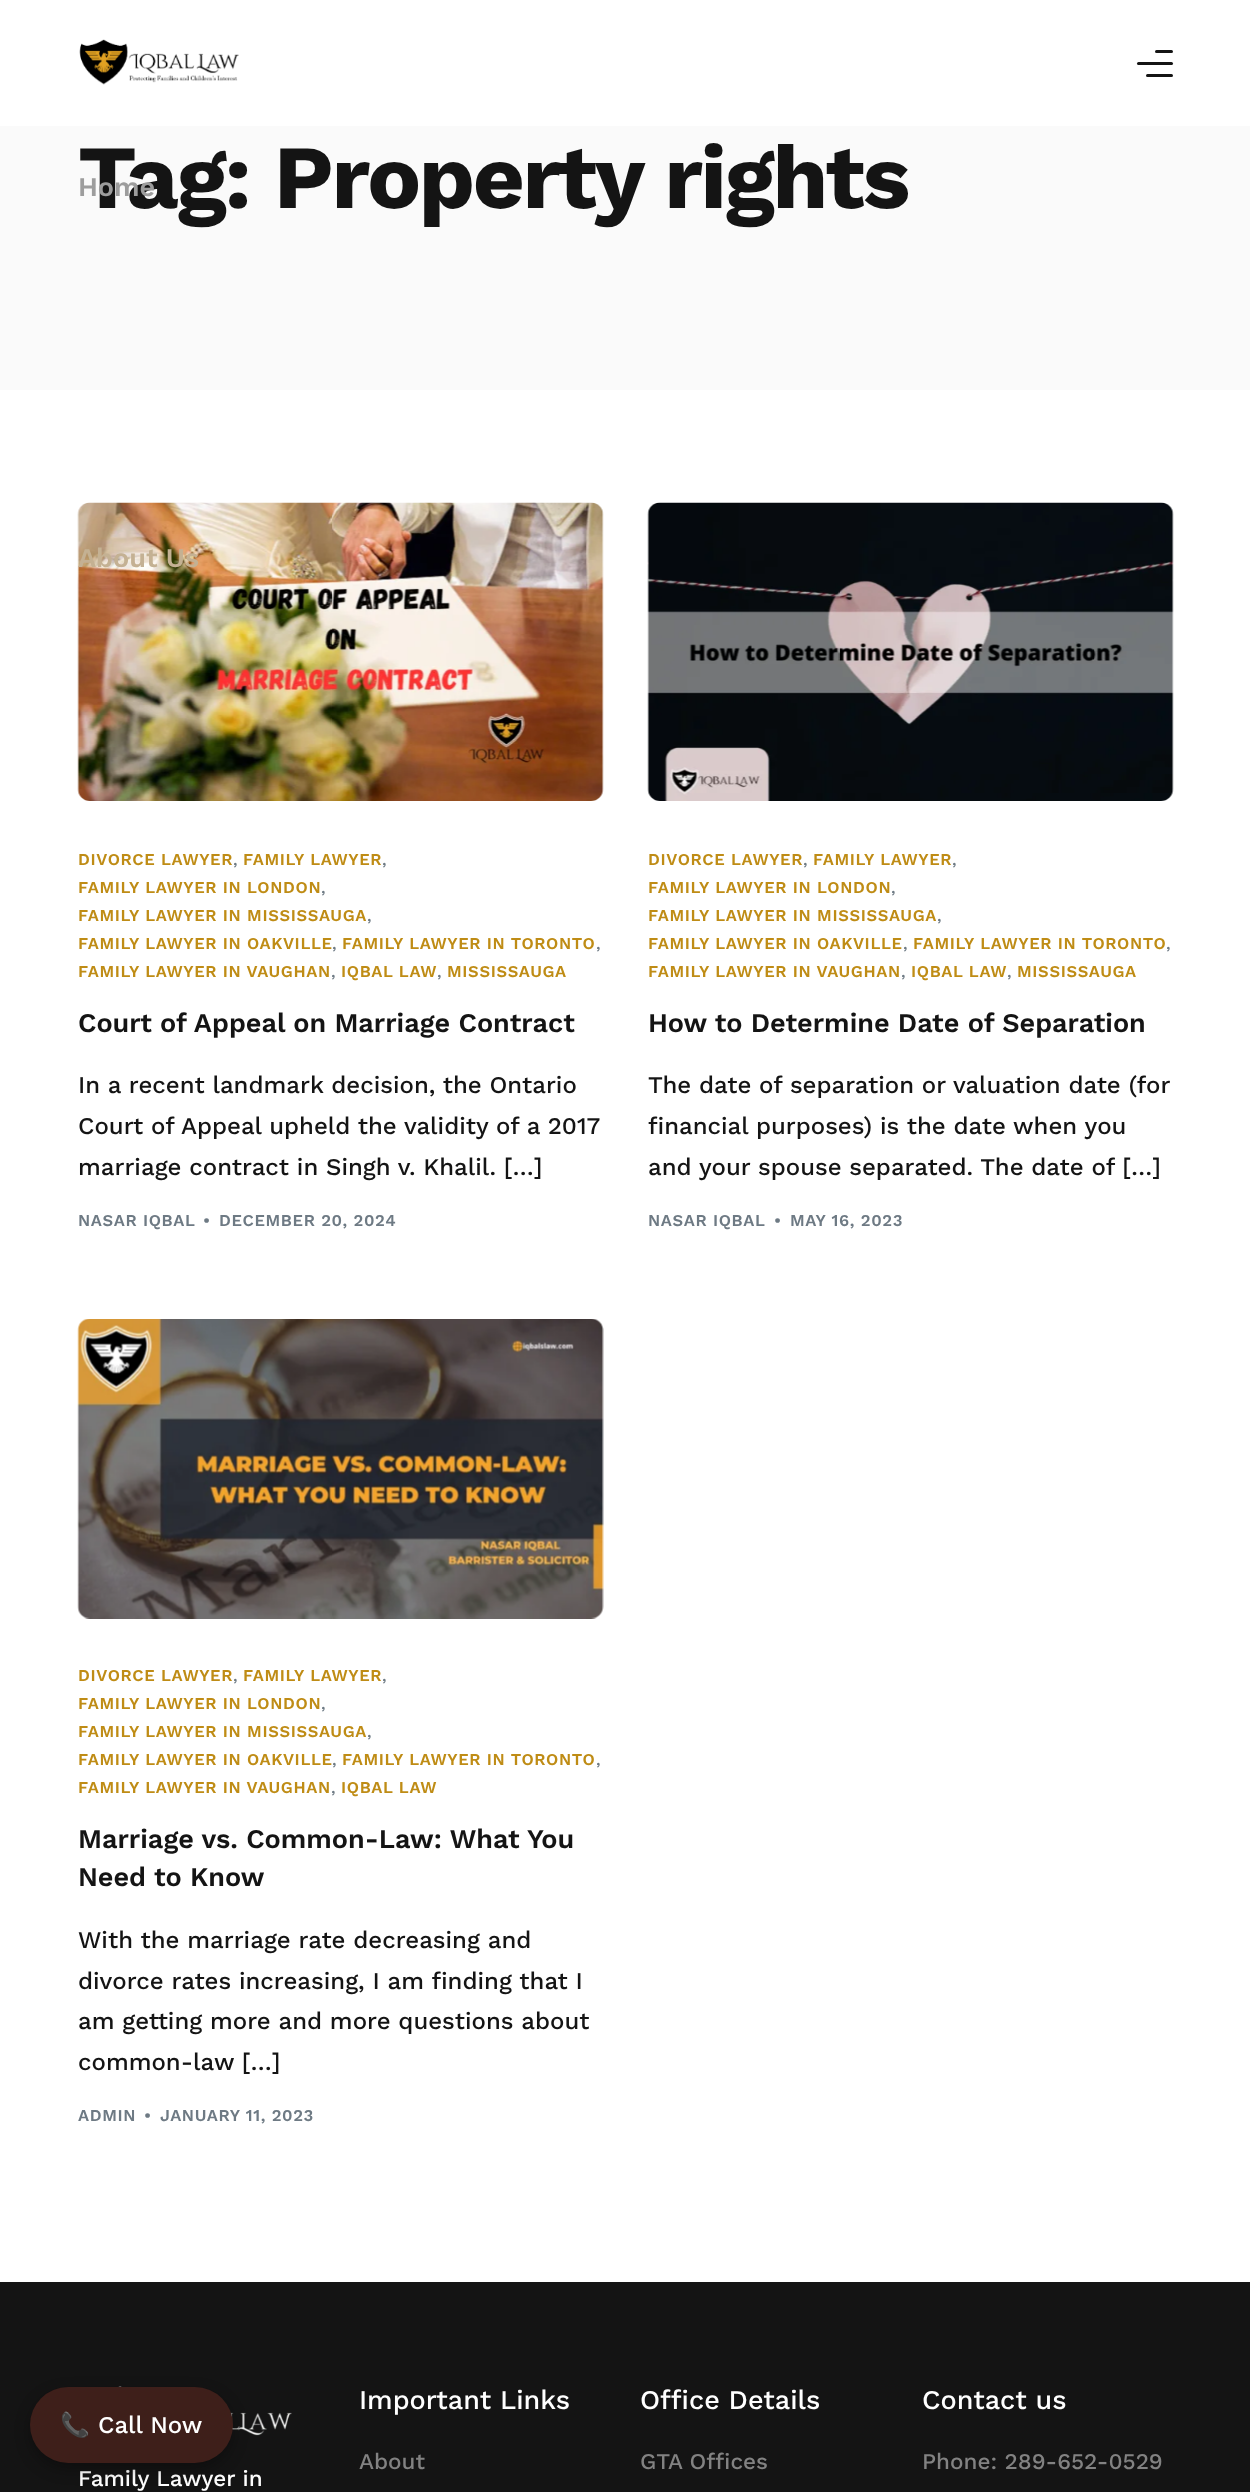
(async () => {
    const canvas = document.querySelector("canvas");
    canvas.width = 1250;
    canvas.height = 2492;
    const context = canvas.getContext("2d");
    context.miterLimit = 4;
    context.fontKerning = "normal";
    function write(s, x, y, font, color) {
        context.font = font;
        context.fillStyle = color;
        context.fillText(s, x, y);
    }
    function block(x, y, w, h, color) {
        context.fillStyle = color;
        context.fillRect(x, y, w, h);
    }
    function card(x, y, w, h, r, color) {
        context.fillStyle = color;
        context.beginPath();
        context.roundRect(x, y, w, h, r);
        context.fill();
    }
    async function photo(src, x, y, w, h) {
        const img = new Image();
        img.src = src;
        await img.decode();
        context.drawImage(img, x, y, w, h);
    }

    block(0, 0, 1250, 2492, "rgb(255, 255, 255)");
    await photo("media/1.png", 79, 39, 160, 46);
    card(1155, 50, 18, 3, 1.5, "rgb(20, 20, 20)");
    card(1137, 62, 36, 3, 1.5, "rgb(20, 20, 20)");
    card(1146, 74, 27, 3, 1.5, "rgb(20, 20, 20)");
    block(0, 126, 1250, 264, "rgb(250, 250, 250)");
    context.letterSpacing = "-2.4px";
    write("Tag: Property rights", 78, 208, "bold 90px Work Sans", "rgb(20, 20, 20)");
    await photo("media/2.png", 77, 502, 527, 299);
    context.letterSpacing = "0.65px";
    write("DIVORCE LAWYER", 78, 865, "600 16.5px Work Sans", "rgb(191, 140, 21)");
    context.letterSpacing = "0px";
    write(",", 233, 865, "500 16.5px Work Sans", "rgb(110, 122, 132)");
    context.letterSpacing = "0.65px";
    write("FAMILY LAWYER", 243, 865, "600 16.5px Work Sans", "rgb(191, 140, 21)");
    context.letterSpacing = "0px";
    write(",", 382, 865, "500 16.5px Work Sans", "rgb(110, 122, 132)");
    context.letterSpacing = "0.65px";
    write("FAMILY LAWYER IN LONDON", 78, 893, "600 16.5px Work Sans", "rgb(191, 140, 21)");
    context.letterSpacing = "0px";
    write(",", 321, 893, "500 16.5px Work Sans", "rgb(110, 122, 132)");
    context.letterSpacing = "0.65px";
    write("FAMILY LAWYER IN MISSISSAUGA", 78, 921, "600 16.5px Work Sans", "rgb(191, 140, 21)");
    context.letterSpacing = "0px";
    write(",", 367, 921, "500 16.5px Work Sans", "rgb(110, 122, 132)");
    context.letterSpacing = "0.65px";
    write("FAMILY LAWYER IN OAKVILLE", 78, 949, "600 16.5px Work Sans", "rgb(191, 140, 21)");
    context.letterSpacing = "0px";
    write(",", 332, 949, "500 16.5px Work Sans", "rgb(110, 122, 132)");
    context.letterSpacing = "0.65px";
    write("FAMILY LAWYER IN TORONTO", 342, 949, "600 16.5px Work Sans", "rgb(191, 140, 21)");
    context.letterSpacing = "0px";
    write(",", 596, 949, "500 16.5px Work Sans", "rgb(110, 122, 132)");
    context.letterSpacing = "0.65px";
    write("FAMILY LAWYER IN VAUGHAN", 78, 977, "600 16.5px Work Sans", "rgb(191, 140, 21)");
    context.letterSpacing = "0px";
    write(",", 331, 977, "500 16.5px Work Sans", "rgb(110, 122, 132)");
    context.letterSpacing = "0.65px";
    write("IQBAL LAW", 341, 977, "600 16.5px Work Sans", "rgb(191, 140, 21)");
    context.letterSpacing = "0px";
    write(",", 437, 977, "500 16.5px Work Sans", "rgb(110, 122, 132)");
    context.letterSpacing = "0.65px";
    write("MISSISSAUGA", 447, 977, "600 16.5px Work Sans", "rgb(191, 140, 21)");
    context.letterSpacing = "0px";
    write("Court of Appeal on Marriage Contract", 78, 1032, "600 27px Work Sans", "rgb(20, 20, 20)");
    write("In a recent landmark decision, the Ontario", 78, 1093, "500 24px Work Sans", "rgb(20, 20, 20)");
    write("Court of Appeal upheld the validity of a 2017", 78, 1134, "500 24px Work Sans", "rgb(20, 20, 20)");
    write("marriage contract in Singh v. Khalil. […]", 78, 1175, "500 24px Work Sans", "rgb(20, 20, 20)");
    context.letterSpacing = "0.65px";
    write("NASAR IQBAL", 78, 1226, "600 16.5px Work Sans", "rgb(110, 122, 132)");
    write("•", 203, 1226, "600 16.5px Work Sans", "rgb(110, 122, 132)");
    write("DECEMBER 20, 2024", 219, 1226, "600 16.5px Work Sans", "rgb(110, 122, 132)");
    await photo("media/3.png", 647, 502, 527, 299);
    write("DIVORCE LAWYER", 648, 865, "600 16.5px Work Sans", "rgb(191, 140, 21)");
    context.letterSpacing = "0px";
    write(",", 803, 865, "500 16.5px Work Sans", "rgb(110, 122, 132)");
    context.letterSpacing = "0.65px";
    write("FAMILY LAWYER", 813, 865, "600 16.5px Work Sans", "rgb(191, 140, 21)");
    context.letterSpacing = "0px";
    write(",", 952, 865, "500 16.5px Work Sans", "rgb(110, 122, 132)");
    context.letterSpacing = "0.65px";
    write("FAMILY LAWYER IN LONDON", 648, 893, "600 16.5px Work Sans", "rgb(191, 140, 21)");
    context.letterSpacing = "0px";
    write(",", 891, 893, "500 16.5px Work Sans", "rgb(110, 122, 132)");
    context.letterSpacing = "0.65px";
    write("FAMILY LAWYER IN MISSISSAUGA", 648, 921, "600 16.5px Work Sans", "rgb(191, 140, 21)");
    context.letterSpacing = "0px";
    write(",", 937, 921, "500 16.5px Work Sans", "rgb(110, 122, 132)");
    context.letterSpacing = "0.65px";
    write("FAMILY LAWYER IN OAKVILLE", 648, 949, "600 16.5px Work Sans", "rgb(191, 140, 21)");
    context.letterSpacing = "0px";
    write(",", 903, 949, "500 16.5px Work Sans", "rgb(110, 122, 132)");
    context.letterSpacing = "0.65px";
    write("FAMILY LAWYER IN TORONTO", 913, 949, "600 16.5px Work Sans", "rgb(191, 140, 21)");
    context.letterSpacing = "0px";
    write(",", 1166, 949, "500 16.5px Work Sans", "rgb(110, 122, 132)");
    context.letterSpacing = "0.65px";
    write("FAMILY LAWYER IN VAUGHAN", 648, 977, "600 16.5px Work Sans", "rgb(191, 140, 21)");
    context.letterSpacing = "0px";
    write(",", 901, 977, "500 16.5px Work Sans", "rgb(110, 122, 132)");
    context.letterSpacing = "0.65px";
    write("IQBAL LAW", 911, 977, "600 16.5px Work Sans", "rgb(191, 140, 21)");
    context.letterSpacing = "0px";
    write(",", 1007, 977, "500 16.5px Work Sans", "rgb(110, 122, 132)");
    context.letterSpacing = "0.65px";
    write("MISSISSAUGA", 1017, 977, "600 16.5px Work Sans", "rgb(191, 140, 21)");
    context.letterSpacing = "0px";
    write("How to Determine Date of Separation", 648, 1032, "600 27px Work Sans", "rgb(20, 20, 20)");
    write("The date of separation or valuation date (for", 648, 1093, "500 24px Work Sans", "rgb(20, 20, 20)");
    write("financial purposes) is the date when you", 648, 1134, "500 24px Work Sans", "rgb(20, 20, 20)");
    write("and your spouse separated. The date of […]", 648, 1175, "500 24px Work Sans", "rgb(20, 20, 20)");
    context.letterSpacing = "0.65px";
    write("NASAR IQBAL", 648, 1226, "600 16.5px Work Sans", "rgb(110, 122, 132)");
    write("•", 774, 1226, "600 16.5px Work Sans", "rgb(110, 122, 132)");
    write("MAY 16, 2023", 790, 1226, "600 16.5px Work Sans", "rgb(110, 122, 132)");
    await photo("media/4.png", 77, 1319, 527, 300);
    write("DIVORCE LAWYER", 78, 1681, "600 16.5px Work Sans", "rgb(191, 140, 21)");
    context.letterSpacing = "0px";
    write(",", 233, 1681, "500 16.5px Work Sans", "rgb(110, 122, 132)");
    context.letterSpacing = "0.65px";
    write("FAMILY LAWYER", 243, 1681, "600 16.5px Work Sans", "rgb(191, 140, 21)");
    context.letterSpacing = "0px";
    write(",", 382, 1681, "500 16.5px Work Sans", "rgb(110, 122, 132)");
    context.letterSpacing = "0.65px";
    write("FAMILY LAWYER IN LONDON", 78, 1709, "600 16.5px Work Sans", "rgb(191, 140, 21)");
    context.letterSpacing = "0px";
    write(",", 321, 1709, "500 16.5px Work Sans", "rgb(110, 122, 132)");
    context.letterSpacing = "0.65px";
    write("FAMILY LAWYER IN MISSISSAUGA", 78, 1737, "600 16.5px Work Sans", "rgb(191, 140, 21)");
    context.letterSpacing = "0px";
    write(",", 367, 1737, "500 16.5px Work Sans", "rgb(110, 122, 132)");
    context.letterSpacing = "0.65px";
    write("FAMILY LAWYER IN OAKVILLE", 78, 1765, "600 16.5px Work Sans", "rgb(191, 140, 21)");
    context.letterSpacing = "0px";
    write(",", 332, 1765, "500 16.5px Work Sans", "rgb(110, 122, 132)");
    context.letterSpacing = "0.65px";
    write("FAMILY LAWYER IN TORONTO", 342, 1765, "600 16.5px Work Sans", "rgb(191, 140, 21)");
    context.letterSpacing = "0px";
    write(",", 596, 1765, "500 16.5px Work Sans", "rgb(110, 122, 132)");
    context.letterSpacing = "0.65px";
    write("FAMILY LAWYER IN VAUGHAN", 78, 1793, "600 16.5px Work Sans", "rgb(191, 140, 21)");
    context.letterSpacing = "0px";
    write(",", 331, 1793, "500 16.5px Work Sans", "rgb(110, 122, 132)");
    context.letterSpacing = "0.65px";
    write("IQBAL LAW", 341, 1793, "600 16.5px Work Sans", "rgb(191, 140, 21)");
    context.letterSpacing = "0px";
    write("Marriage vs. Common-Law: What You", 78, 1848, "600 27px Work Sans", "rgb(20, 20, 20)");
    write("Need to Know", 78, 1886, "600 27px Work Sans", "rgb(20, 20, 20)");
    write("With the marriage rate decreasing and", 78, 1948, "500 24px Work Sans", "rgb(20, 20, 20)");
    write("divorce rates increasing, I am finding that I", 78, 1989, "500 24px Work Sans", "rgb(20, 20, 20)");
    write("am getting more and more questions about", 78, 2029, "500 24px Work Sans", "rgb(20, 20, 20)");
    write("common-law […]", 78, 2070, "500 24px Work Sans", "rgb(20, 20, 20)");
    context.letterSpacing = "0.65px";
    write("ADMIN", 78, 2121, "600 16.5px Work Sans", "rgb(110, 122, 132)");
    write("•", 144, 2121, "600 16.5px Work Sans", "rgb(110, 122, 132)");
    write("JANUARY 11, 2023", 160, 2121, "600 16.5px Work Sans", "rgb(110, 122, 132)");
    block(0, 2282, 1250, 210, "rgb(20, 20, 20)");
    context.letterSpacing = "0px";
    write("Important Links", 359, 2409, "500 27px Work Sans", "rgb(255, 255, 255)");
    write("About", 359, 2469, "500 22.5px Work Sans", "rgb(130, 130, 130)");
    write("Office Details", 640, 2409, "500 27px Work Sans", "rgb(255, 255, 255)");
    write("GTA Offices", 640, 2469, "500 22.5px Work Sans", "rgb(130, 130, 130)");
    write("Contact us", 922, 2409, "500 27px Work Sans", "rgb(255, 255, 255)");
    write("Phone: 289-652-0529", 922, 2469, "500 22.5px Work Sans", "rgb(130, 130, 130)");
    await photo("media/5.png", 118, 2386, 174, 50);
    write("Family Lawyer in", 78, 2486, "500 22.5px Work Sans", "rgb(255, 255, 255)");
    write("Home", 78, 196, "600 27px Work Sans", "rgb(157, 157, 157)");
    write("About Us", 78, 567, "600 27px Work Sans", "rgb(196, 177, 147)");
    context.fillStyle = "rgba(0, 0, 0, 0.3)";
    context.filter = "blur(7.5px)";
    context.beginPath();
    context.roundRect(30, 2393, 203, 76, 38);
    context.fill();
    context.filter = "none";
    card(30, 2387, 203, 76, 38, "rgb(62, 31, 26)");
    write("📞", 60, 2433, "24px Noto Color Emoji", "rgb(255, 255, 255)");
    write("Call Now", 98, 2433, "500 24px Work Sans", "rgb(255, 255, 255)");
})();
